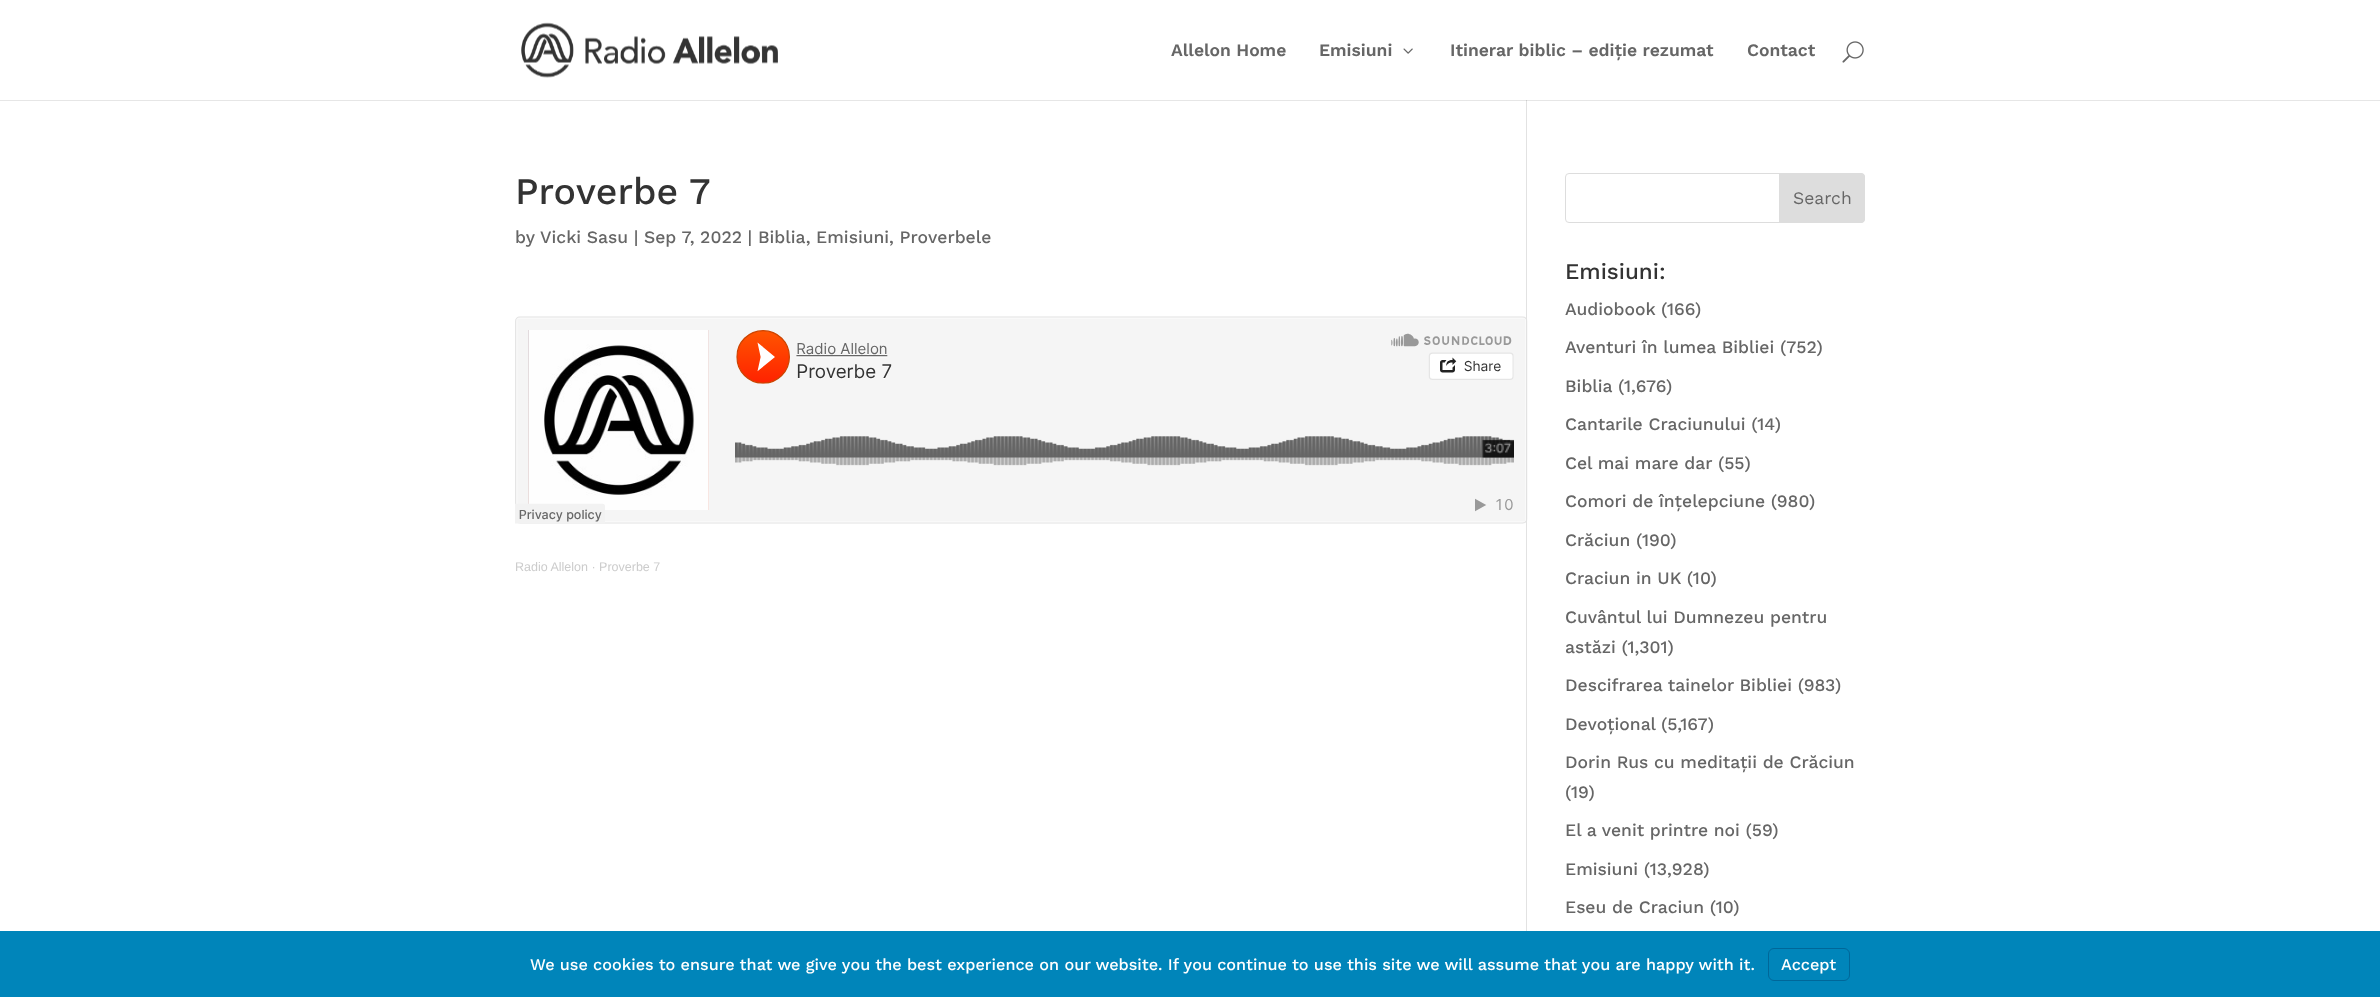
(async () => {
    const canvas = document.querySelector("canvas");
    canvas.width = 2380;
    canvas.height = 997;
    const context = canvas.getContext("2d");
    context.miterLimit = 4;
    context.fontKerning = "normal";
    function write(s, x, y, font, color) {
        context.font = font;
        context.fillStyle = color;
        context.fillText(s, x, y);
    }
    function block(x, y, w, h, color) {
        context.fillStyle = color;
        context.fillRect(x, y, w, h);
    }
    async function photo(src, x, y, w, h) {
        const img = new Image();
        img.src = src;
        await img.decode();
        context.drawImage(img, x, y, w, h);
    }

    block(0, 0, 2380, 997, "rgb(255, 255, 255)");
    block(0, 100, 2380, 1, "rgb(230, 230, 230)");
    await photo("media/1.png", 521, 22, 257, 56);
    write("Allelon Home", 1171, 56, "600 17.5px Work Sans", "rgb(102, 102, 102)");
    write("Emisiuni", 1319, 56, "600 17.5px Work Sans", "rgb(102, 102, 102)");
    await photo("media/2.png", 1403, 48, 10, 6);
    write("Itinerar biblic – ediție rezumat", 1450, 56, "600 17.5px Work Sans", "rgb(102, 102, 102)");
    write("Contact", 1747, 56, "600 17.5px Work Sans", "rgb(102, 102, 102)");
    await photo("media/3.png", 1842, 41, 22, 22);
    await photo("media/4.png", 515, 316, 1013, 208);
    block(1526, 100, 1, 831, "rgb(226, 226, 226)");
    block(1526, 100, 1, 1, "rgb(203, 203, 203)");
    write("Proverbe 7", 515, 204, "500 37.5px Work Sans", "rgb(51, 51, 51)");
    write("by", 515, 243, "500 17.5px Work Sans", "rgb(102, 102, 102)");
    write("Vicki Sasu | Sep 7, 2022 | Biblia, Emisiuni, Proverbele", 540, 243, "500 17.5px Work Sans", "rgb(102, 102, 102)");
    write("Radio Allelon · Proverbe 7", 515, 571, "12.5px Liberation Sans", "rgb(204, 204, 204)");
    context.beginPath();
    context.roundRect(1565.5, 173.5, 299, 49, 3.5);
    context.strokeStyle = "rgb(221, 221, 221)";
    context.stroke();
    context.fillStyle = "rgb(221, 221, 221)";
    context.beginPath();
    context.roundRect(1779.5, 173.5, 85, 49, [0, 3.5, 3.5, 0]);
    context.fill();
    context.stroke();
    write("Search", 1793, 204, "17.5px Work Sans", "rgb(102, 102, 102)");
    write("Emisiuni:", 1565, 279, "500 22.5px Work Sans", "rgb(51, 51, 51)");
    write("Audiobook", 1565, 315, "500 17.5px Work Sans", "rgb(102, 102, 102)");
    write("(166)", 1661, 315, "500 17.5px Work Sans", "rgb(102, 102, 102)");
    write("Aventuri în lumea Bibliei (752)", 1565, 353, "500 17.5px Work Sans", "rgb(102, 102, 102)");
    write("Biblia", 1565, 392, "500 17.5px Work Sans", "rgb(102, 102, 102)");
    write("(1,676)", 1618, 392, "500 17.5px Work Sans", "rgb(102, 102, 102)");
    write("Cantarile Craciunului (14)", 1565, 430, "500 17.5px Work Sans", "rgb(102, 102, 102)");
    write("Cel mai mare dar", 1565, 469, "500 17.5px Work Sans", "rgb(102, 102, 102)");
    write("(55)", 1718, 469, "500 17.5px Work Sans", "rgb(102, 102, 102)");
    write("Comori de înțelepciune (980)", 1565, 507, "500 17.5px Work Sans", "rgb(102, 102, 102)");
    write("Crăciun (190)", 1565, 546, "500 17.5px Work Sans", "rgb(102, 102, 102)");
    write("Craciun in UK (10)", 1565, 584, "500 17.5px Work Sans", "rgb(102, 102, 102)");
    write("Cuvântul lui Dumnezeu pentru", 1565, 623, "500 17.5px Work Sans", "rgb(102, 102, 102)");
    write("astăzi (1,301)", 1565, 653, "500 17.5px Work Sans", "rgb(102, 102, 102)");
    write("Descifrarea tainelor Bibliei (983)", 1565, 691, "500 17.5px Work Sans", "rgb(102, 102, 102)");
    write("Devoțional", 1565, 730, "500 17.5px Work Sans", "rgb(102, 102, 102)");
    write("(5,167)", 1661, 730, "500 17.5px Work Sans", "rgb(102, 102, 102)");
    write("Dorin Rus cu meditații de Crăciun", 1565, 768, "500 17.5px Work Sans", "rgb(102, 102, 102)");
    write("(19)", 1565, 798, "500 17.5px Work Sans", "rgb(102, 102, 102)");
    write("El a venit printre noi (59)", 1565, 836, "500 17.5px Work Sans", "rgb(102, 102, 102)");
    write("Emisiuni (13,928)", 1565, 875, "500 17.5px Work Sans", "rgb(102, 102, 102)");
    write("Eseu de Craciun (10)", 1565, 913, "500 17.5px Work Sans", "rgb(102, 102, 102)");
    block(0, 931, 2380, 66, "rgb(0, 133, 186)");
    write("We use cookies to ensure that we give you the best experience on our website. If you continue to use this site we will assume that you are happy with it.", 530, 970, "500 16.25px Work Sans", "rgb(255, 255, 255)");
    context.beginPath();
    context.roundRect(1768.5, 948.5, 81, 32, 5.5);
    context.strokeStyle = "rgb(0, 103, 153)";
    context.stroke();
    write("Accept", 1781, 970, "500 16.25px Work Sans", "rgb(255, 255, 255)");
})();
